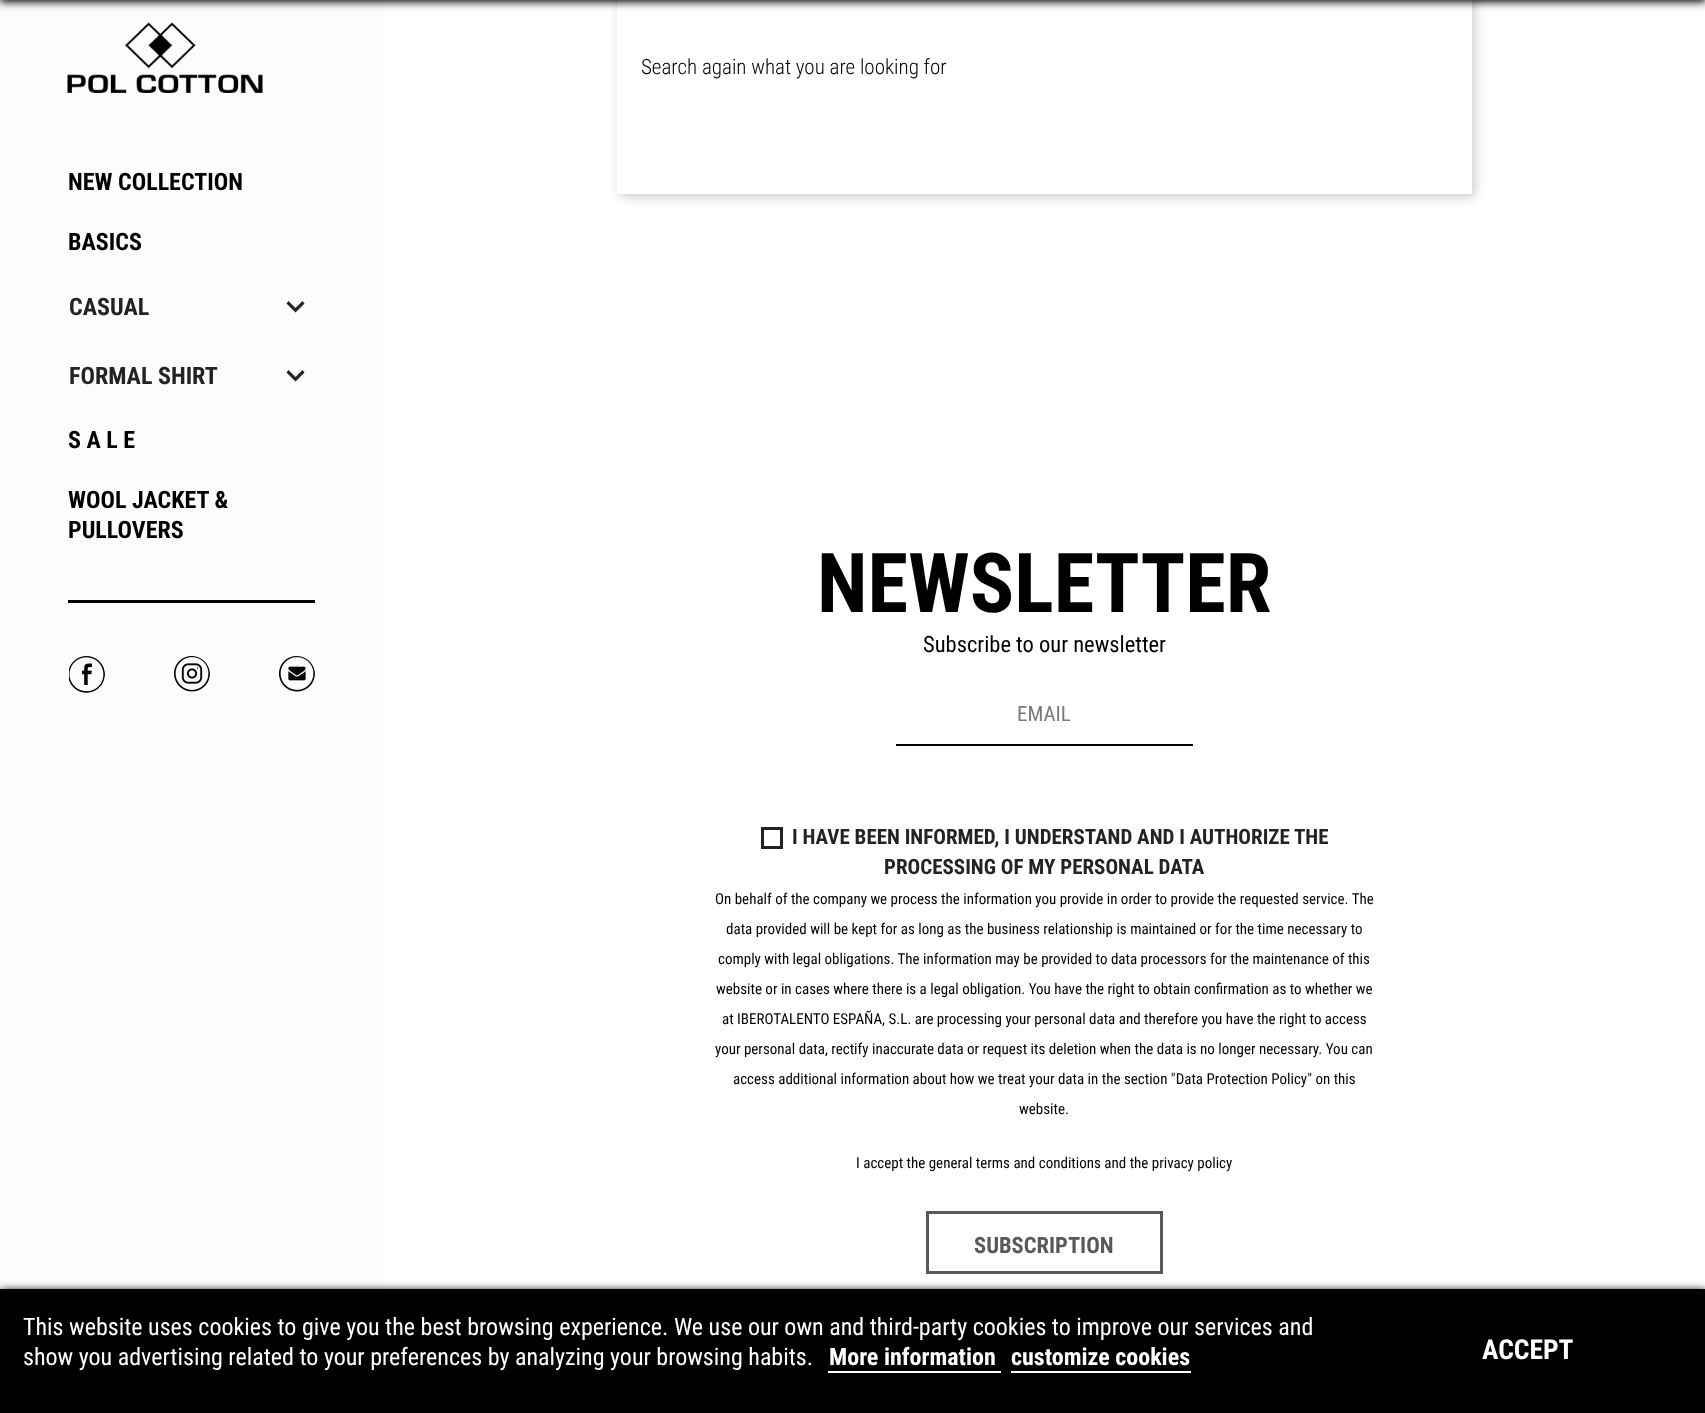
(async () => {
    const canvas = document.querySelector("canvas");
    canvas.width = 1705;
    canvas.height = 1413;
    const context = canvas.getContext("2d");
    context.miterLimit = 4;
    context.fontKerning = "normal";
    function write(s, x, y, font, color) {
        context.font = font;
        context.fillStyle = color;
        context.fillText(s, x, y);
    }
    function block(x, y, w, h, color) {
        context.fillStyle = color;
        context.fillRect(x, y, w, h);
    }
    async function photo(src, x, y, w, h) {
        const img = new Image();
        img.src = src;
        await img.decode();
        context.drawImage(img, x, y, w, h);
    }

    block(0, 0, 1705, 1413, "rgb(255, 255, 255)");
    block(0, 0, 383, 1289, "rgb(252, 252, 251)");
    context.fillStyle = "rgba(0, 0, 0, 0.2)";
    context.filter = "blur(6px)";
    context.beginPath();
    context.rect(620, -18, 855, 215);
    context.fill();
    context.filter = "none";
    block(617, 0, 855, 194, "rgb(255, 255, 255)");
    context.fillStyle = "rgb(0, 0, 0)";
    context.filter = "blur(4px)";
    context.beginPath();
    context.rect(0, -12, 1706, 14);
    context.fill();
    context.filter = "none";
    await photo("media/1.png", 67, 22, 196, 71);
    block(68, 600, 247, 3, "rgb(0, 0, 0)");
    write("NEW COLLECTION", 68, 190, "bold 24px Roboto Condensed", "rgb(0, 0, 0)");
    write("BASICS", 68, 250, "bold 24px Roboto Condensed", "rgb(0, 0, 0)");
    write("CASUAL", 69, 315, "bold 24px Roboto Condensed", "rgb(35, 35, 35)");
    context.beginPath();
    context.moveTo(288.5, 301);
    context.lineTo(295.5, 308);
    context.lineTo(302.5, 301);
    context.lineTo(304.5, 303.5);
    context.lineTo(295.5, 312.5);
    context.lineTo(286.5, 303.5);
    context.closePath();
    context.fill();
    write("FORMAL SHIRT", 69, 384, "bold 24px Roboto Condensed", "rgb(35, 35, 35)");
    context.beginPath();
    context.moveTo(288.5, 370);
    context.lineTo(295.5, 377);
    context.lineTo(302.5, 370);
    context.lineTo(304.5, 372.5);
    context.lineTo(295.5, 381.5);
    context.lineTo(286.5, 372.5);
    context.closePath();
    context.fill();
    write("S A L E", 68, 448, "bold 24px Roboto Condensed", "rgb(0, 0, 0)");
    write("WOOL JACKET &", 68, 508, "bold 24px Roboto Condensed", "rgb(0, 0, 0)");
    write("PULLOVERS", 68, 538, "bold 24px Roboto Condensed", "rgb(0, 0, 0)");
    await photo("media/2.png", 69, 656, 36, 37);
    await photo("media/3.png", 174, 656, 36, 36);
    await photo("media/4.png", 279, 656, 36, 36);
    write("Search again what you are looking for", 641, 74, "300 21px Roboto Condensed", "rgb(0, 0, 0)");
    write("NEWSLETTER", 817, 612, "bold 82.5px Roboto Condensed", "rgb(0, 0, 0)");
    write("Subscribe to our newsletter", 923, 652, "22.5px Roboto Condensed", "rgb(0, 0, 0)");
    block(896, 744, 297, 2, "rgb(0, 0, 0)");
    write("EMAIL", 1017, 721, "21px Roboto Condensed", "rgb(122, 122, 122)");
    context.strokeStyle = "rgb(35, 35, 35)";
    context.lineWidth = 3;
    context.strokeRect(762.5, 828.5, 19, 19);
    write("I HAVE BEEN INFORMED, I UNDERSTAND AND I AUTHORIZE THE", 792, 844, "bold 21px Roboto Condensed", "rgb(35, 35, 35)");
    write("PROCESSING OF MY PERSONAL DATA", 884, 874, "bold 21px Roboto Condensed", "rgb(35, 35, 35)");
    write("On behalf of the company we process the information you provide in order to provide the requested service. The", 715, 904, "15px Roboto Condensed", "rgb(0, 0, 0)");
    write("data provided will be kept for as long as the business relationship is maintained or for the time necessary to", 726, 934, "15px Roboto Condensed", "rgb(0, 0, 0)");
    write("comply with legal obligations. The information may be provided to data processors for the maintenance of this", 718, 964, "15px Roboto Condensed", "rgb(0, 0, 0)");
    write("website or in cases where there is a legal obligation. You have the right to obtain confirmation as to whether we", 716, 994, "15px Roboto Condensed", "rgb(0, 0, 0)");
    write("at IBEROTALENTO ESPAÑA, S.L. are processing your personal data and therefore you have the right to access", 722, 1024, "15px Roboto Condensed", "rgb(0, 0, 0)");
    write("your personal data, rectify inaccurate data or request its deletion when the data is no longer necessary. You can", 715, 1054, "15px Roboto Condensed", "rgb(0, 0, 0)");
    write("access additional information about how we treat your data in the section \"Data Protection Policy\" on this", 733, 1084, "15px Roboto Condensed", "rgb(0, 0, 0)");
    write("website.", 1019, 1114, "15px Roboto Condensed", "rgb(0, 0, 0)");
    write("I accept the general terms and conditions and the privacy policy", 856, 1168, "15px Roboto Condensed", "rgb(0, 0, 0)");
    context.strokeStyle = "rgb(89, 89, 89)";
    context.strokeRect(927.5, 1212.5, 234, 60);
    write("SUBSCRIPTION", 974, 1253, "bold 22.5px Roboto Condensed", "rgb(89, 89, 89)");
    context.fillStyle = "rgb(0, 0, 0)";
    context.filter = "blur(4px)";
    context.beginPath();
    context.rect(0, 1290, 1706, 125);
    context.fill();
    context.filter = "none";
    block(0, 1289, 1705, 124, "rgb(0, 0, 0)");
    write("This website uses cookies to give you the best browsing experience. We use our own and third-party cookies to improve our services and", 23, 1335, "24px Roboto Condensed", "rgb(255, 255, 255)");
    write("show you advertising related to your preferences by analyzing your browsing habits.", 23, 1365, "24px Roboto Condensed", "rgb(255, 255, 255)");
    write("More information", 829, 1365, "bold 24px Roboto Condensed", "rgb(255, 255, 255)");
    block(828, 1371, 173, 2, "rgb(255, 255, 255)");
    write("customize cookies", 1011, 1365, "bold 24px Roboto Condensed", "rgb(255, 255, 255)");
    block(1011, 1371, 180, 2, "rgb(255, 255, 255)");
    write("ACCEPT", 1482, 1359, "bold 27.5px Roboto Condensed", "rgb(255, 255, 255)");
})();
